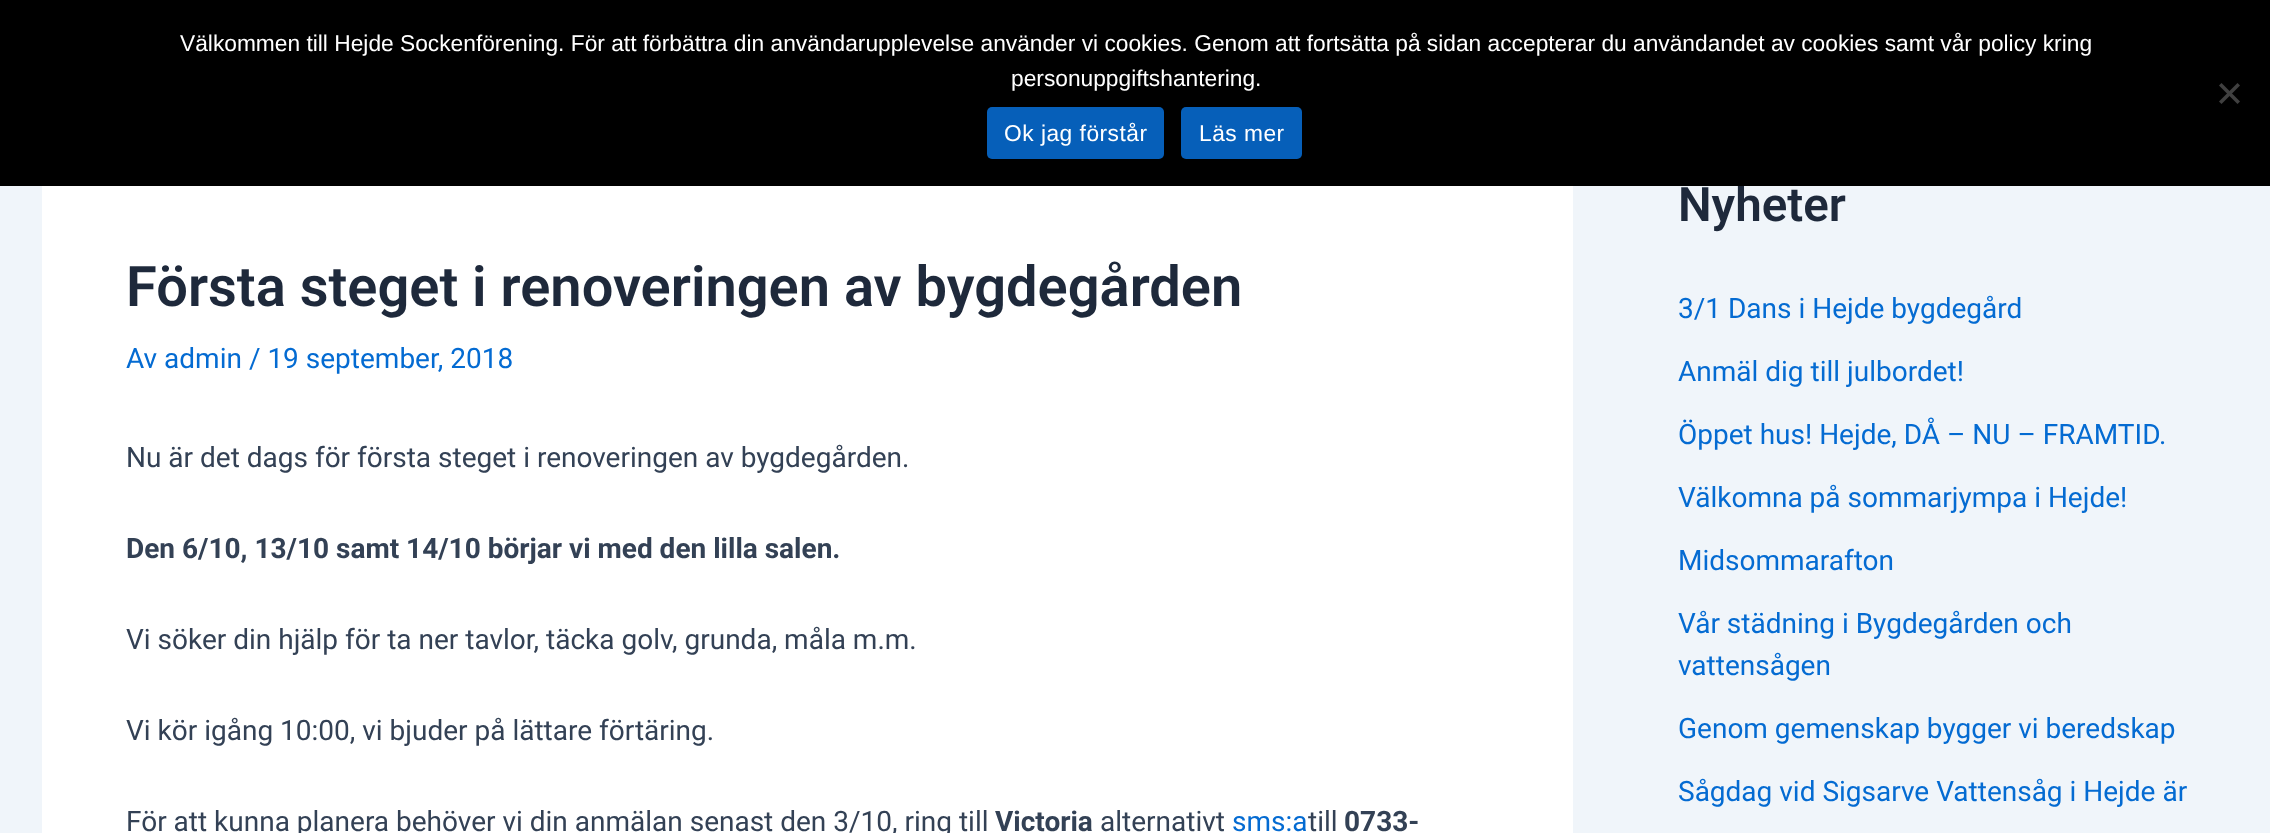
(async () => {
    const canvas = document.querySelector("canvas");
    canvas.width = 2270;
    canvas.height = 833;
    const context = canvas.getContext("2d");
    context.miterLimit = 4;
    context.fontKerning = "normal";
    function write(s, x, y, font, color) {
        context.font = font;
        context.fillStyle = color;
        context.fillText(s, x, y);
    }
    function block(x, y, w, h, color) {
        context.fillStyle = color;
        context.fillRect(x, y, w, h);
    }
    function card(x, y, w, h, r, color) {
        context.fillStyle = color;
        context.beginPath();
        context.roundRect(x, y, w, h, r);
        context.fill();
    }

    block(0, 0, 2270, 833, "rgb(240, 245, 250)");
    write("Nyheter", 1678, 221, "600 47.5px Roboto", "rgb(30, 41, 59)");
    block(0, 0, 2270, 186, "rgb(0, 0, 0)");
    write("Välkommen till Hejde Sockenförening. För att förbättra din användarupplevelse använder vi cookies. Genom att fortsätta på sidan accepterar du användandet av cookies samt vår policy kring", 180, 51, "22.75px Liberation Sans", "rgb(255, 255, 255)");
    write("personuppgiftshantering.", 1011, 86, "22.75px Liberation Sans", "rgb(255, 255, 255)");
    context.fillStyle = "rgb(64, 64, 64)";
    context.beginPath();
    context.moveTo(2237.5, 83);
    context.lineTo(2240, 85.5);
    context.lineTo(2221.5, 104);
    context.lineTo(2219, 101.5);
    context.closePath();
    context.fill();
    context.beginPath();
    context.moveTo(2219, 85.5);
    context.lineTo(2221.5, 83);
    context.lineTo(2240, 101.5);
    context.lineTo(2237.5, 104);
    context.closePath();
    context.fill();
    card(987, 107, 177, 52, 5, "rgb(6, 95, 185)");
    context.letterSpacing = "0.5px";
    write("Ok jag förstår", 1004, 141, "22.75px Liberation Sans", "rgb(255, 255, 255)");
    card(1181, 107, 121, 52, 5, "rgb(6, 95, 185)");
    write("Läs mer", 1199, 141, "22.75px Liberation Sans", "rgb(255, 255, 255)");
    block(42, 186, 1531, 647, "rgb(255, 255, 255)");
    context.letterSpacing = "0px";
    write("Första steget i renoveringen av bygdegården", 126, 306, "600 56px Roboto", "rgb(30, 41, 59)");
    write("Av admin / 19 september, 2018", 126, 368, "28px Roboto", "rgb(4, 107, 210)");
    write("Nu är det dags för första steget i renoveringen av bygdegården.", 126, 467, "28px Roboto", "rgb(51, 65, 85)");
    write("Den 6/10, 13/10 samt 14/10 börjar vi med den lilla salen.", 126, 558, "bold 28px Roboto", "rgb(51, 65, 85)");
    write("Vi söker din hjälp för ta ner tavlor, täcka golv, grunda, måla m.m.", 126, 649, "28px Roboto", "rgb(51, 65, 85)");
    write("Vi kör igång 10:00, vi bjuder på lättare förtäring.", 126, 740, "28px Roboto", "rgb(51, 65, 85)");
    write("För att kunna planera behöver vi din anmälan senast den 3/10, ring till", 126, 831, "28px Roboto", "rgb(51, 65, 85)");
    write("Victoria", 995, 831, "bold 28px Roboto", "rgb(51, 65, 85)");
    write("alternativt", 1100, 831, "28px Roboto", "rgb(51, 65, 85)");
    write("sms:a", 1232, 831, "28px Roboto", "rgb(4, 107, 210)");
    write("till", 1308, 831, "28px Roboto", "rgb(51, 65, 85)");
    write("0733-", 1344, 831, "bold 28px Roboto", "rgb(51, 65, 85)");
    write("3/1 Dans i Hejde bygdegård", 1678, 318, "28px Roboto", "rgb(4, 107, 210)");
    write("Anmäl dig till julbordet!", 1678, 381, "28px Roboto", "rgb(4, 107, 210)");
    write("Öppet hus! Hejde, DÅ – NU – FRAMTID.", 1678, 444, "28px Roboto", "rgb(4, 107, 210)");
    write("Välkomna på sommarjympa i Hejde!", 1678, 507, "28px Roboto", "rgb(4, 107, 210)");
    write("Midsommarafton", 1678, 570, "28px Roboto", "rgb(4, 107, 210)");
    write("Vår städning i Bygdegården och", 1678, 633, "28px Roboto", "rgb(4, 107, 210)");
    write("vattensågen", 1678, 675, "28px Roboto", "rgb(4, 107, 210)");
    write("Genom gemenskap bygger vi beredskap", 1678, 738, "28px Roboto", "rgb(4, 107, 210)");
    write("Sågdag vid Sigsarve Vattensåg i Hejde är", 1678, 801, "28px Roboto", "rgb(4, 107, 210)");
})();
